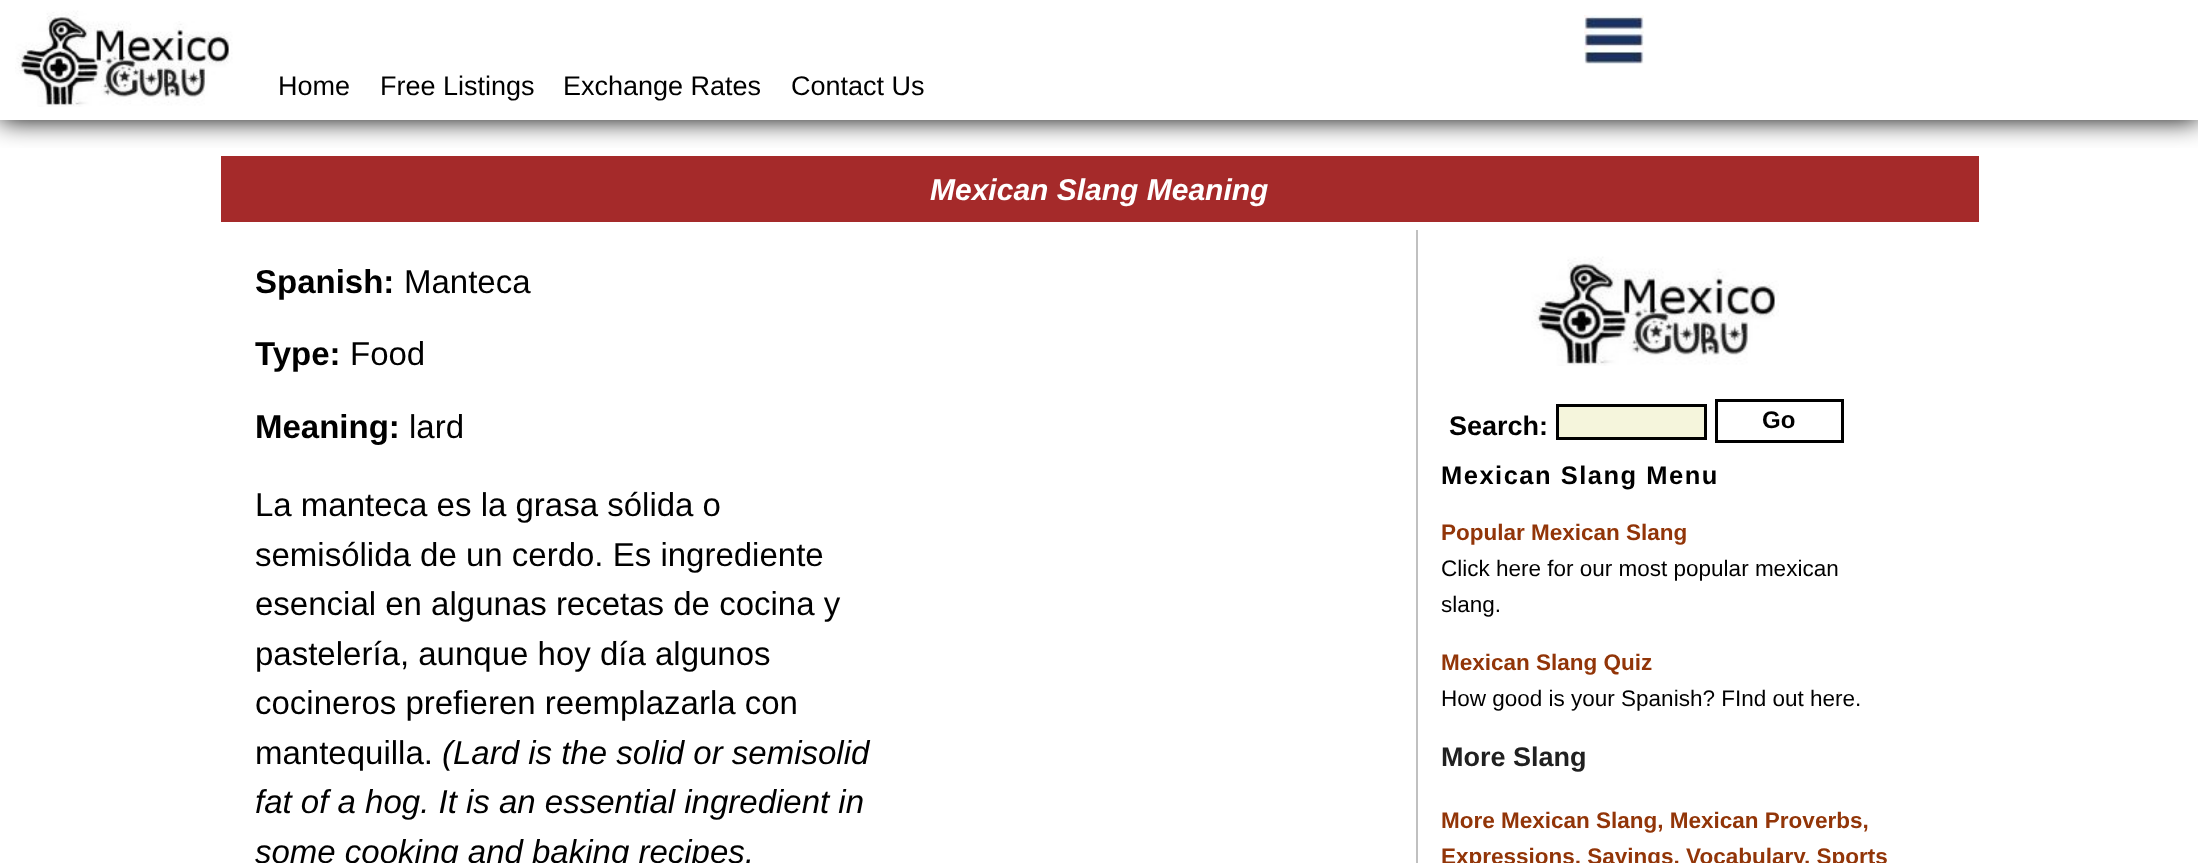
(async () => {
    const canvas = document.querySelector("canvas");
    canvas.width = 2198;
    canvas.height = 863;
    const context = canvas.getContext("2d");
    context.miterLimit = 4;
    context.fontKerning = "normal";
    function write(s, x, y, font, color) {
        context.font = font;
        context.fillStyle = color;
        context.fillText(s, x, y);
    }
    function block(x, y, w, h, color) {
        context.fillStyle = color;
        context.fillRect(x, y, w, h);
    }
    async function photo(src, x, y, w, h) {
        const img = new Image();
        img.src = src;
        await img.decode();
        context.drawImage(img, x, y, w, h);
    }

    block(0, 0, 2198, 863, "rgb(255, 255, 255)");
    block(221, 156, 1758, 66, "rgb(165, 42, 42)");
    context.save();
    context.beginPath();
    context.rect(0, 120, 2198, 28);
    context.clip();
    context.fillStyle = "rgb(0, 0, 0)";
    context.filter = "blur(13.5px)";
    context.beginPath();
    context.rect(0, 0, 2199, 120);
    context.fill();
    context.filter = "none";
    context.restore();
    await photo("media/1.png", 15, 10, 218, 97);
    await photo("media/2.png", 1584, 15, 60, 49);
    write("Home", 278, 95, "27px Liberation Sans", "rgb(0, 0, 0)");
    write("Free Listings", 380, 95, "27px Liberation Sans", "rgb(0, 0, 0)");
    write("Exchange Rates", 563, 95, "27px Liberation Sans", "rgb(0, 0, 0)");
    write("Contact Us", 791, 95, "27px Liberation Sans", "rgb(0, 0, 0)");
    write("Mexican Slang Meaning", 930, 200, "italic bold 30px Liberation Sans", "rgb(255, 255, 255)");
    write("Spanish:", 255, 293, "bold 33px Liberation Sans", "rgb(0, 0, 0)");
    write("Manteca", 404, 293, "33px Liberation Sans", "rgb(0, 0, 0)");
    write("Type:", 255, 365, "bold 33px Liberation Sans", "rgb(0, 0, 0)");
    write("Food", 350, 365, "33px Liberation Sans", "rgb(0, 0, 0)");
    write("Meaning:", 255, 438, "bold 33px Liberation Sans", "rgb(0, 0, 0)");
    write("lard", 409, 438, "33px Liberation Sans", "rgb(0, 0, 0)");
    write("La manteca es la grasa sólida o", 255, 516, "33px Liberation Sans", "rgb(0, 0, 0)");
    write("semisólida de un cerdo. Es ingrediente", 255, 566, "33px Liberation Sans", "rgb(0, 0, 0)");
    write("esencial en algunas recetas de cocina y", 255, 615, "33px Liberation Sans", "rgb(0, 0, 0)");
    write("pastelería, aunque hoy día algunos", 255, 665, "33px Liberation Sans", "rgb(0, 0, 0)");
    write("cocineros prefieren reemplazarla con", 255, 714, "33px Liberation Sans", "rgb(0, 0, 0)");
    write("mantequilla.", 255, 764, "33px Liberation Sans", "rgb(0, 0, 0)");
    write("(Lard is the solid or semisolid", 442, 764, "italic 33px Liberation Sans", "rgb(0, 0, 0)");
    write("fat of a hog. It is an essential ingredient in", 255, 813, "italic 33px Liberation Sans", "rgb(0, 0, 0)");
    write("some cooking and baking recipes,", 255, 863, "italic 33px Liberation Sans", "rgb(0, 0, 0)");
    block(1416, 230, 2, 633, "rgb(192, 192, 192)");
    await photo("media/3.png", 1531, 256, 248, 110);
    write("Search:", 1449, 435, "bold 27px Liberation Sans", "rgb(0, 0, 0)");
    context.fillStyle = "rgb(245, 245, 220)";
    context.beginPath();
    context.rect(1557.5, 405.5, 148, 33);
    context.fill();
    context.strokeStyle = "rgb(0, 0, 0)";
    context.lineWidth = 3;
    context.stroke();
    context.strokeRect(1716.5, 400.5, 126, 41);
    write("Go", 1762, 428, "bold 24px Liberation Sans", "rgb(0, 0, 0)");
    context.letterSpacing = "1.5px";
    write("Mexican Slang Menu", 1441, 484, "bold 25.5px Liberation Sans", "rgb(0, 0, 0)");
    context.letterSpacing = "0px";
    write("Popular Mexican Slang", 1441, 540, "bold 22.5px Liberation Sans", "rgb(146, 53, 8)");
    write("Click here for our most popular mexican", 1441, 576, "22.5px Liberation Sans", "rgb(0, 0, 0)");
    write("slang.", 1441, 612, "22.5px Liberation Sans", "rgb(0, 0, 0)");
    write("Mexican Slang Quiz", 1441, 670, "bold 22.5px Liberation Sans", "rgb(146, 53, 8)");
    write("How good is your Spanish? FInd out here.", 1441, 706, "22.5px Liberation Sans", "rgb(0, 0, 0)");
    write("More Slang", 1441, 766, "bold 27px Liberation Sans", "rgb(32, 32, 32)");
    write("More Mexican Slang, Mexican Proverbs,", 1441, 828, "bold 22.5px Liberation Sans", "rgb(146, 53, 8)");
    write("Expressions, Sayings, Vocabulary, Sports", 1441, 864, "bold 22.5px Liberation Sans", "rgb(146, 53, 8)");
})();
